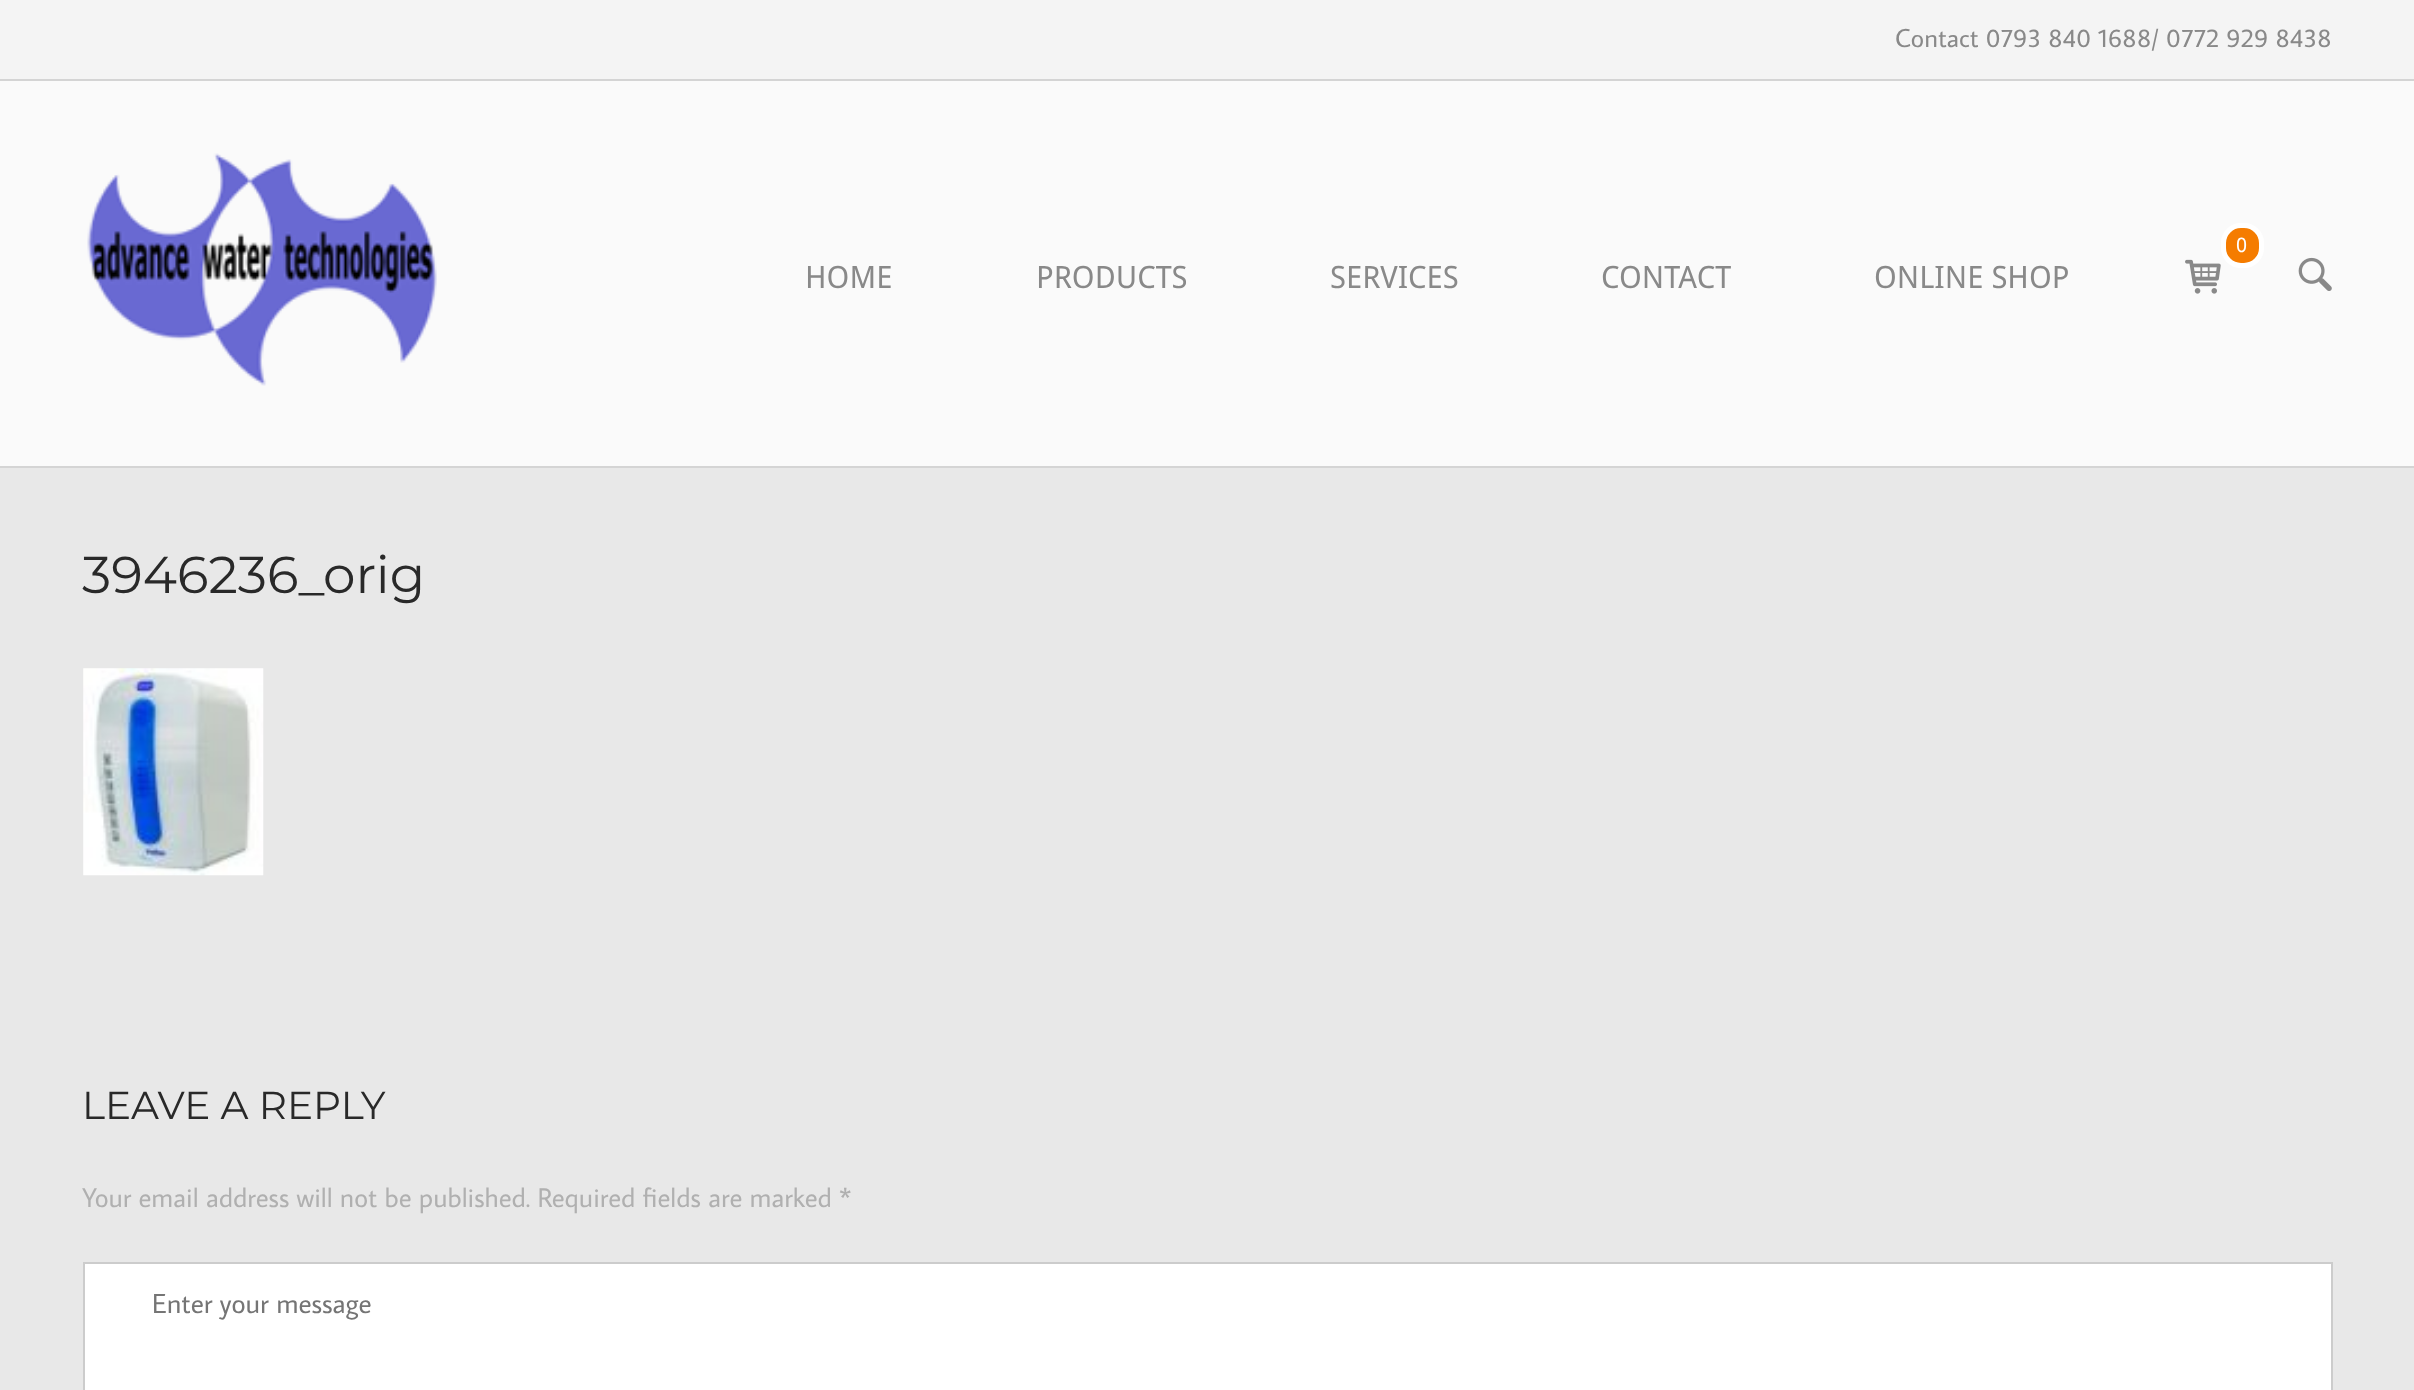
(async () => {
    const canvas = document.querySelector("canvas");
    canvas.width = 2414;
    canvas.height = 1390;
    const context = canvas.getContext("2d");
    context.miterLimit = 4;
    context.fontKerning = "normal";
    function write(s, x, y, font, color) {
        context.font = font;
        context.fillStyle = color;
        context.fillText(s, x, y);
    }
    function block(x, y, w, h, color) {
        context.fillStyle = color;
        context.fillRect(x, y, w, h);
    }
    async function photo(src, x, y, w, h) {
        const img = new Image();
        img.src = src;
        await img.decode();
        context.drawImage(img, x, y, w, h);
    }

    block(0, 0, 2414, 1390, "rgb(232, 232, 232)");
    block(0, 0, 2414, 79, "rgb(244, 244, 244)");
    block(0, 79, 2414, 2, "rgb(212, 212, 212)");
    write("Contact 0793 840 1688/ 0772 929 8438", 1895, 47, "25.9px Average Sans", "rgb(137, 137, 137)");
    block(0, 81, 2414, 385, "rgb(250, 250, 250)");
    block(0, 466, 2414, 2, "rgb(212, 212, 212)");
    await photo("media/1.png", 87, 153, 350, 233);
    context.fillStyle = "rgb(245, 124, 0)";
    context.beginPath();
    context.roundRect(2223.5, 225.5, 38, 40, 17.5);
    context.fill();
    context.strokeStyle = "rgb(255, 255, 255)";
    context.lineWidth = 5;
    context.stroke();
    write("0", 2236, 252, "20px Droid Sans", "rgb(255, 255, 255)");
    await photo("media/2.png", 2185, 259, 36, 35);
    write("HOME", 805, 288, "30.75px Droid Sans", "rgb(137, 137, 137)");
    write("PRODUCTS", 1036, 288, "30.75px Droid Sans", "rgb(137, 137, 137)");
    write("SERVICES", 1330, 288, "30.75px Droid Sans", "rgb(137, 137, 137)");
    write("CONTACT", 1601, 288, "30.75px Droid Sans", "rgb(137, 137, 137)");
    write("ONLINE SHOP", 1874, 288, "30.75px Droid Sans", "rgb(137, 137, 137)");
    await photo("media/3.png", 2298, 257, 34, 34);
    write("3946236_orig", 82, 593, "100 51.75px Montserrat", "rgb(41, 41, 41)");
    await photo("media/4.png", 83, 668, 181, 208);
    write("LEAVE A REPLY", 82, 1119, "100 39px Montserrat", "rgb(41, 41, 41)");
    write("Your email address will not be published. Required fields are marked *", 82, 1207, "27px Average Sans", "rgb(176, 176, 176)");
    context.fillStyle = "rgb(255, 255, 255)";
    context.beginPath();
    context.rect(84, 1263, 2248, 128);
    context.fill();
    context.strokeStyle = "rgb(204, 204, 204)";
    context.lineWidth = 2;
    context.stroke();
    write("Enter your message", 152, 1313, "27.5px Average Sans", "rgb(117, 117, 117)");
})();
